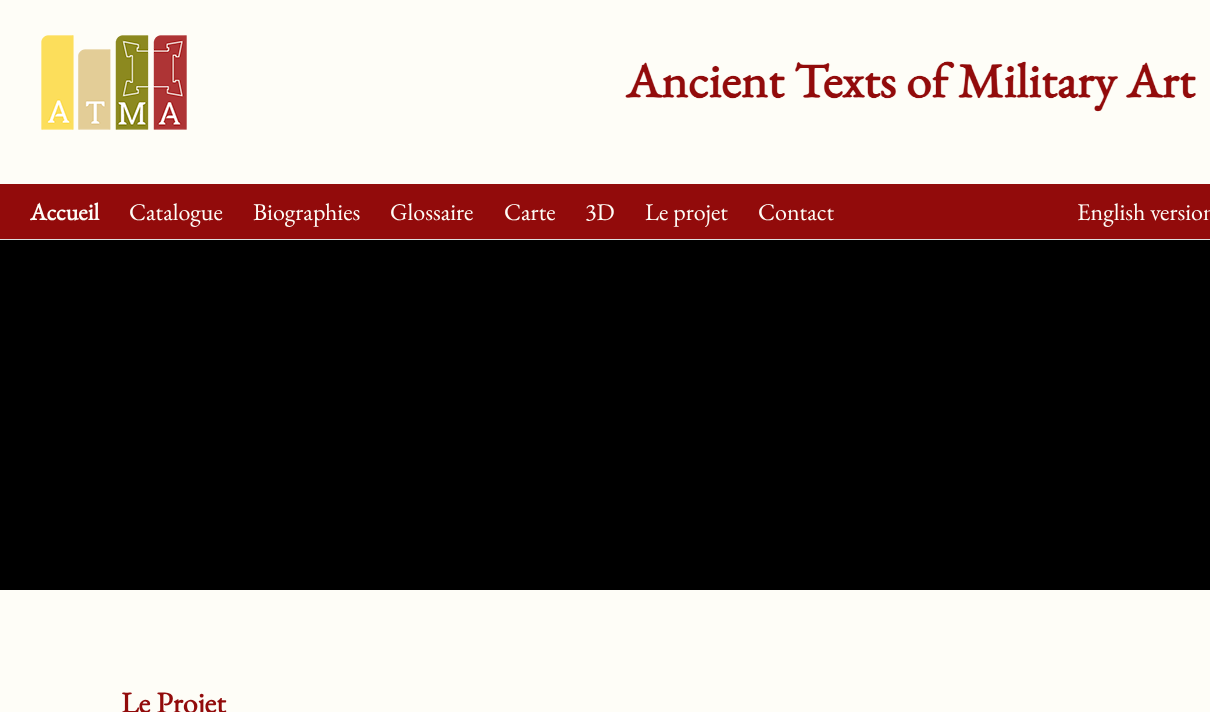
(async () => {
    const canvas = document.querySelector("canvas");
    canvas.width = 1210;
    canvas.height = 712;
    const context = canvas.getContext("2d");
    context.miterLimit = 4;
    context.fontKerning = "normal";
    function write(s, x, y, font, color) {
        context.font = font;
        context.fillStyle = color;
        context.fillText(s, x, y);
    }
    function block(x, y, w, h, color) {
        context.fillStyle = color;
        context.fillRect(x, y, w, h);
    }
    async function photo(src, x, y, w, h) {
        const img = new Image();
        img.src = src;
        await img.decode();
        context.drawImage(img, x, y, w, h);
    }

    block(0, 0, 1210, 712, "rgb(254, 253, 247)");
    block(0, 239, 1210, 1, "rgb(222, 222, 222)");
    await photo("media/1.png", 625, 61, 571, 51);
    await photo("media/2.png", 41, 35, 146, 95);
    block(0, 184, 1210, 55, "rgb(146, 11, 11)");
    write("Accueil", 30, 220, "bold 24px EB Garamond", "rgb(254, 253, 247)");
    write("Catalogue", 129, 220, "24px EB Garamond", "rgb(254, 253, 247)");
    write("Biographies", 253, 220, "24px EB Garamond", "rgb(254, 253, 247)");
    write("Glossaire", 390, 220, "24px EB Garamond", "rgb(254, 253, 247)");
    write("Carte", 504, 220, "24px EB Garamond", "rgb(254, 253, 247)");
    write("3D", 585, 220, "24px EB Garamond", "rgb(254, 253, 247)");
    write("Le projet", 645, 220, "24px EB Garamond", "rgb(254, 253, 247)");
    write("Contact", 758, 220, "24px EB Garamond", "rgb(254, 253, 247)");
    write("English version", 1077, 220, "24px EB Garamond", "rgb(254, 253, 247)");
    block(0, 240, 1210, 350, "rgb(0, 0, 0)");
    write("Le Projet", 121, 713, "bold 30px EB Garamond", "rgb(146, 11, 11)");
})();
